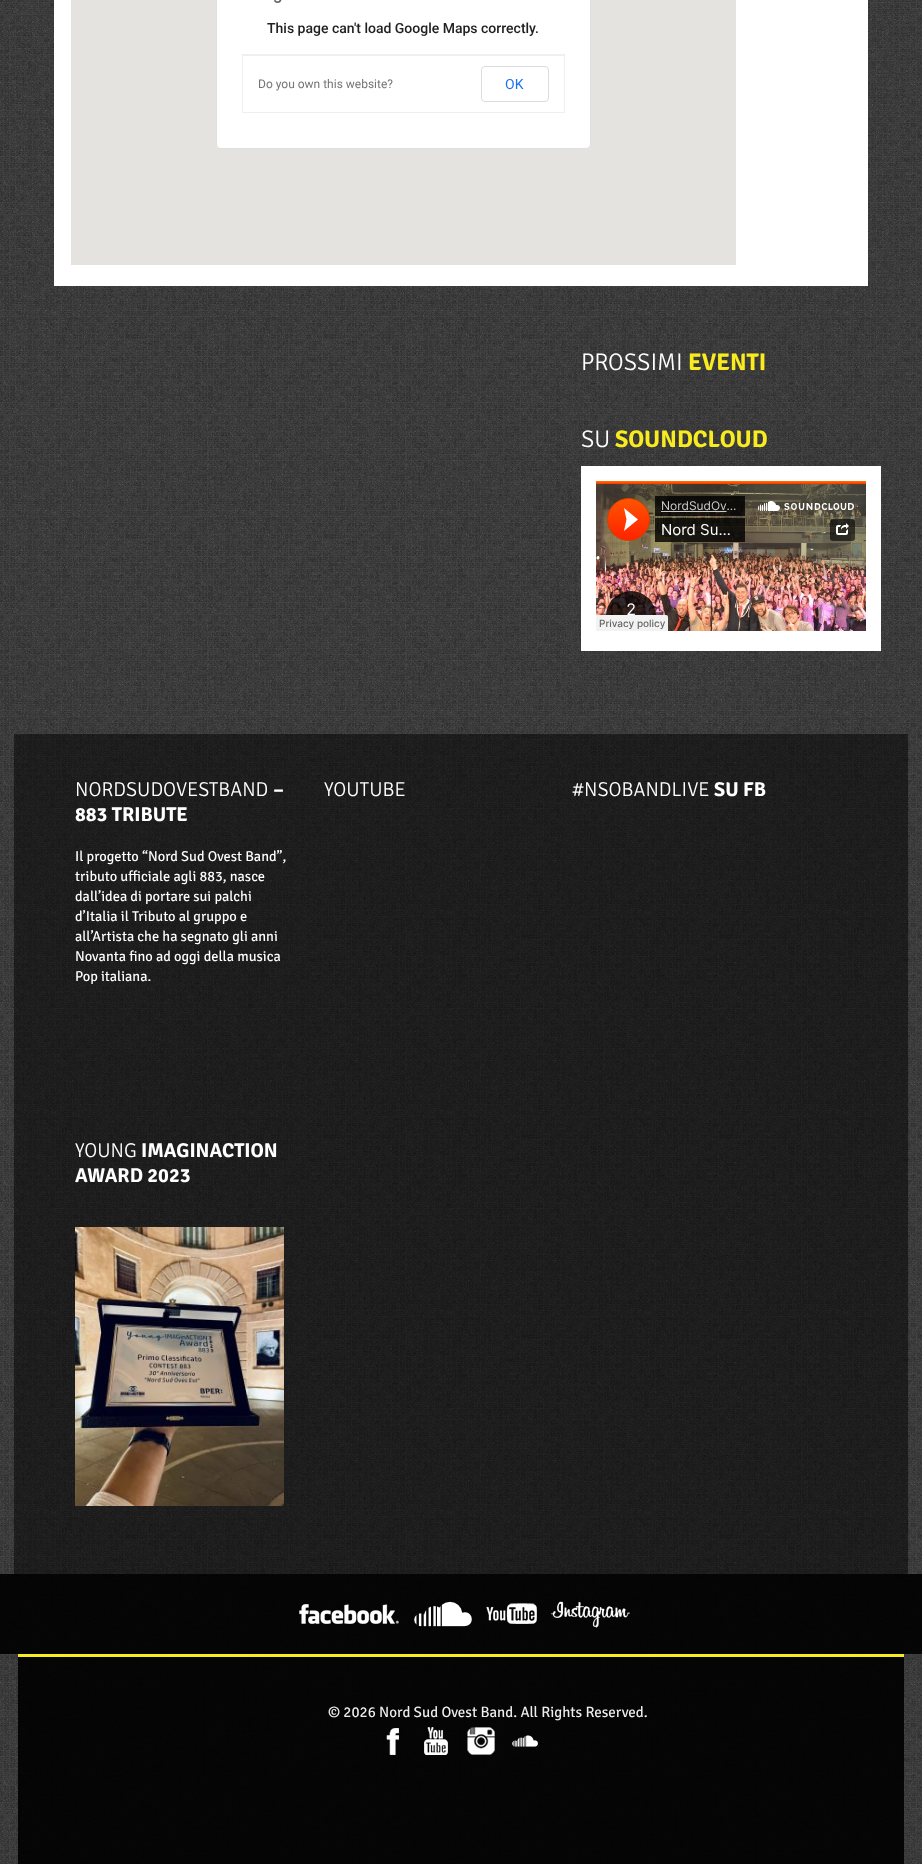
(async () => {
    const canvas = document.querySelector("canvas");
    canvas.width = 922;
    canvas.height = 1864;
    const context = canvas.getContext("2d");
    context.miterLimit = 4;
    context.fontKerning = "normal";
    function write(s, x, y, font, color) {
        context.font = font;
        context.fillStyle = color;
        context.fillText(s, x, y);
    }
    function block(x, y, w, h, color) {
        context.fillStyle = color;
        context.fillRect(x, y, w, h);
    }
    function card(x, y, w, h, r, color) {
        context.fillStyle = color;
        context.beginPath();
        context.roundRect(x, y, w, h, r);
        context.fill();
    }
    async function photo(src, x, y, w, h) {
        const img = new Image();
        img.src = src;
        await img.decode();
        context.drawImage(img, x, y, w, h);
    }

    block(0, 0, 922, 1864, "rgb(255, 255, 255)");
    await photo("media/1.png", 0, 0, 922, 1864);
    block(54, 0, 814, 286, "rgb(255, 255, 255)");
    block(71, 0, 665, 265, "rgb(229, 227, 223)");
    card(216, -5, 375, 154, 5, "rgb(255, 255, 255)");
    context.beginPath();
    context.roundRect(216.5, -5.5, 374, 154, 4.5);
    context.strokeStyle = "rgba(0, 0, 0, 0.12)";
    context.stroke();
    await photo("media/2.png", 273, 0, 9, 3);
    write("This page can't load Google Maps correctly.", 267, 33, "500 14px Roboto", "rgb(33, 33, 33)");
    context.strokeStyle = "rgb(239, 239, 239)";
    context.strokeRect(242.5, 54.5, 322, 58);
    block(243, 55, 321, 1, "rgb(239, 239, 239)");
    write("Do you own this website?", 258, 88, "12px Roboto", "rgb(117, 117, 117)");
    context.beginPath();
    context.roundRect(481.5, 66.5, 67, 35, 3.5);
    context.strokeStyle = "rgb(218, 220, 224)";
    context.stroke();
    write("OK", 505, 89, "14px Roboto", "rgb(26, 115, 232)");
    write("PROSSIMI", 581, 370, "300 24px Signika Negative", "rgb(255, 255, 255)");
    write("EVENTI", 688, 370, "bold 24px Signika Negative", "rgb(248, 235, 31)");
    write("SU", 581, 447, "300 24px Signika Negative", "rgb(255, 255, 255)");
    write("SOUNDCLOUD", 615, 447, "bold 24px Signika Negative", "rgb(248, 235, 31)");
    block(581, 466, 300, 185, "rgb(255, 255, 255)");
    await photo("media/3.png", 596, 481, 270, 150);
    block(14, 734, 894, 840, "rgba(0, 0, 0, 0.5)");
    write("NORDSUDOVESTBAND", 75, 796, "300 20px Signika Negative", "rgb(255, 255, 255)");
    write("–", 273, 796, "bold 20px Signika Negative", "rgb(255, 255, 255)");
    write("883 TRIBUTE", 75, 821, "bold 20px Signika Negative", "rgb(255, 255, 255)");
    write("Il progetto “Nord Sud Ovest Band”,", 75, 861, "14.4px Signika Negative", "rgb(255, 255, 255)");
    write("tributo ufficiale agli 883, nasce", 75, 881, "14.4px Signika Negative", "rgb(255, 255, 255)");
    write("dall’idea di portare sui palchi", 75, 901, "14.4px Signika Negative", "rgb(255, 255, 255)");
    write("d’Italia il Tributo al gruppo e", 75, 921, "14.4px Signika Negative", "rgb(255, 255, 255)");
    write("all’Artista che ha segnato gli anni", 75, 941, "14.4px Signika Negative", "rgb(255, 255, 255)");
    write("Novanta fino ad oggi della musica", 75, 961, "14.4px Signika Negative", "rgb(255, 255, 255)");
    write("Pop italiana.", 75, 981, "14.4px Signika Negative", "rgb(255, 255, 255)");
    write("YOUTUBE", 324, 796, "300 20px Signika Negative", "rgb(255, 255, 255)");
    write("#NSOBANDLIVE", 572, 796, "300 20px Signika Negative", "rgb(255, 255, 255)");
    write("SU FB", 714, 796, "bold 20px Signika Negative", "rgb(255, 255, 255)");
    write("YOUNG", 75, 1157, "300 20px Signika Negative", "rgb(255, 255, 255)");
    write("IMAGINACTION", 141, 1157, "bold 20px Signika Negative", "rgb(255, 255, 255)");
    write("AWARD 2023", 75, 1182, "bold 20px Signika Negative", "rgb(255, 255, 255)");
    await photo("media/4.png", 75, 1227, 209, 279);
    block(0, 1574, 922, 80, "rgba(0, 0, 0, 0.91)");
    await photo("media/5.png", 299, 1604, 100, 20);
    await photo("media/6.png", 414, 1601, 58, 26);
    await photo("media/7.png", 486, 1603, 51, 21);
    await photo("media/8.png", 551, 1599, 79, 29);
    block(18, 1657, 886, 207, "rgba(0, 0, 0, 0.91)");
    block(18, 1654, 886, 3, "rgb(248, 235, 31)");
    write("© 2026 Nord Sud Ovest Band. All Rights Reserved.", 328, 1717, "15px Signika Negative", "rgb(238, 238, 238)");
    await photo("media/9.png", 386, 1728, 13, 27);
    await photo("media/10.png", 424, 1727, 24, 28);
    await photo("media/11.png", 467, 1727, 28, 28);
    await photo("media/12.png", 512, 1735, 26, 12);
})();
